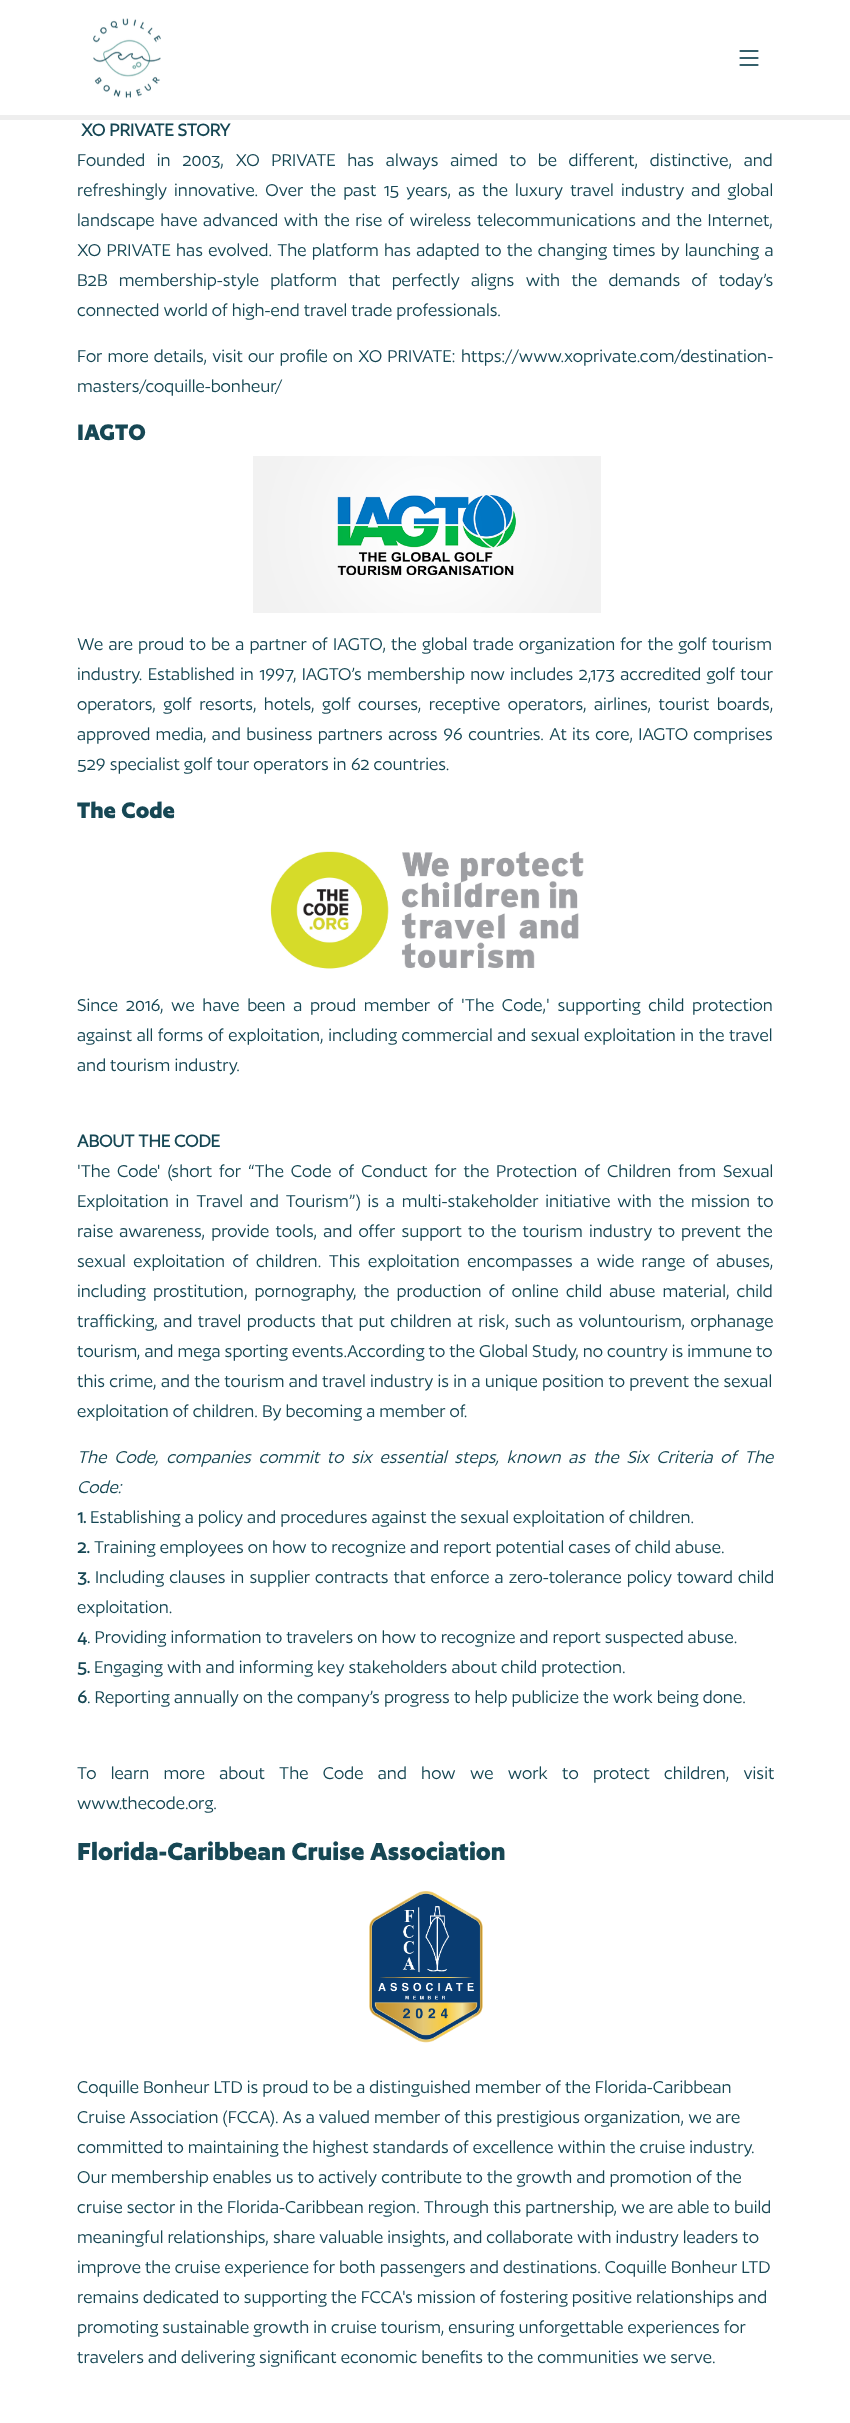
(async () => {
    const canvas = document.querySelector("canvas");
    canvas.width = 850;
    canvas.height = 2423;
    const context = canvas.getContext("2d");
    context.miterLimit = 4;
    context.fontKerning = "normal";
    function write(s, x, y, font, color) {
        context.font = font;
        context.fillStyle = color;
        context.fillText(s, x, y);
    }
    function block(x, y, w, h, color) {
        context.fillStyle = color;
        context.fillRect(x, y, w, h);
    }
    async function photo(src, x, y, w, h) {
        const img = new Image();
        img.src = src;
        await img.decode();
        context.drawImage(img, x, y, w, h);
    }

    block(0, 0, 850, 2423, "rgb(255, 255, 255)");
    block(0, 115, 850, 5, "rgb(238, 238, 238)");
    await photo("media/1.png", 93, 18, 68, 81);
    await photo("media/2.png", 739, 50, 20, 16);
    write("XO PRIVATE STORY", 81, 136, "bold 20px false", "rgb(22, 71, 84)");
    context.wordSpacing = "7.6px";
    write("Founded in 2003, XO PRIVATE has always aimed to be different, distinctive, and", 77, 166, "20px false", "rgb(22, 71, 84)");
    context.wordSpacing = "3.1px";
    write("refreshingly innovative. Over the past 15 years, as the luxury travel industry and global", 77, 196, "20px false", "rgb(22, 71, 84)");
    context.wordSpacing = "1.6px";
    write("landscape have advanced with the rise of wireless telecommunications and the Internet,", 77, 226, "20px false", "rgb(22, 71, 84)");
    context.wordSpacing = "1.2px";
    write("XO PRIVATE has evolved. The platform has adapted to the changing times by launching a", 77, 256, "20px false", "rgb(22, 71, 84)");
    context.wordSpacing = "7.25px";
    write("B2B membership-style platform that perfectly aligns with the demands of today’s", 77, 286, "20px false", "rgb(22, 71, 84)");
    context.wordSpacing = "0px";
    write("connected world of high-end travel trade professionals.", 77, 316, "20px false", "rgb(22, 71, 84)");
    context.wordSpacing = "1px";
    write("For more details, visit our profile on XO PRIVATE:", 77, 362, "20px false", "rgb(22, 71, 84)");
    context.wordSpacing = "0px";
    write("https://www.xoprivate.com/destination-", 461, 362, "20px false", "rgb(22, 71, 84)");
    write("masters/coquille-bonheur/", 77, 392, "20px false", "rgb(22, 71, 84)");
    write("IAGTO", 77, 440, "bold 26px 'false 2'", "rgb(22, 71, 84)");
    await photo("media/3.png", 253, 456, 348, 157);
    context.wordSpacing = "1.1px";
    write("We are proud to be a partner of IAGTO, the global trade organization for the golf tourism", 77, 650, "20px false", "rgb(22, 71, 84)");
    context.wordSpacing = "1.25px";
    write("industry. Established in 1997, IAGTO’s membership now includes 2,173 accredited golf tour", 77, 680, "20px false", "rgb(22, 71, 84)");
    context.wordSpacing = "3.4px";
    write("operators, golf resorts, hotels, golf courses, receptive operators, airlines, tourist boards,", 77, 710, "20px false", "rgb(22, 71, 84)");
    context.wordSpacing = "1.25px";
    write("approved media, and business partners across 96 countries. At its core, IAGTO comprises", 77, 740, "20px false", "rgb(22, 71, 84)");
    context.wordSpacing = "0px";
    write("529 specialist golf tour operators in 62 countries.", 77, 770, "20px false", "rgb(22, 71, 84)");
    write("The Code", 77, 818, "bold 26px 'false 2'", "rgb(22, 71, 84)");
    await photo("media/4.png", 270, 851, 314, 118);
    context.wordSpacing = "3.6px";
    write("Since 2016, we have been a proud member of 'The Code,' supporting child protection", 77, 1011, "20px false", "rgb(22, 71, 84)");
    context.wordSpacing = "0.5px";
    write("against all forms of exploitation, including commercial and sexual exploitation in the travel", 77, 1041, "20px false", "rgb(22, 71, 84)");
    context.wordSpacing = "0px";
    write("and tourism industry.", 77, 1071, "20px false", "rgb(22, 71, 84)");
    write("ABOUT THE CODE", 77, 1147, "bold 20px false", "rgb(22, 71, 84)");
    context.wordSpacing = "2.9px";
    write("'The Code' (short for “The Code of Conduct for the Protection of Children from Sexual", 77, 1177, "20px false", "rgb(22, 71, 84)");
    context.wordSpacing = "2.75px";
    write("Exploitation in Travel and Tourism”) is a multi-stakeholder initiative with the mission to", 77, 1207, "20px false", "rgb(22, 71, 84)");
    context.wordSpacing = "2.1px";
    write("raise awareness, provide tools, and offer support to the tourism industry to prevent the", 77, 1237, "20px false", "rgb(22, 71, 84)");
    context.wordSpacing = "3.5px";
    write("sexual exploitation of children. This exploitation encompasses a wide range of abuses,", 77, 1267, "20px false", "rgb(22, 71, 84)");
    context.wordSpacing = "3.1px";
    write("including prostitution, pornography, the production of online child abuse material, child", 77, 1297, "20px false", "rgb(22, 71, 84)");
    context.wordSpacing = "1.4px";
    write("trafficking, and travel products that put children at risk, such as voluntourism, orphanage", 77, 1327, "20px false", "rgb(22, 71, 84)");
    context.wordSpacing = "0px";
    write("tourism, and mega sporting events.According to the Global Study, no country is immune to", 77, 1357, "20px false", "rgb(22, 71, 84)");
    context.wordSpacing = "0.25px";
    write("this crime, and the tourism and travel industry is in a unique position to prevent the sexual", 77, 1387, "20px false", "rgb(22, 71, 84)");
    context.wordSpacing = "0px";
    write("exploitation of children. By becoming a member of.", 77, 1417, "20px false", "rgb(22, 71, 84)");
    context.wordSpacing = "3.75px";
    write("The Code, companies commit to six essential steps, known as the Six Criteria of The", 77, 1463, "italic 20px false", "rgb(22, 71, 84)");
    context.wordSpacing = "0px";
    write("Code:", 77, 1493, "italic 20px false", "rgb(22, 71, 84)");
    write("1.", 77, 1523, "bold 20px false", "rgb(22, 71, 84)");
    write("Establishing a policy and procedures against the sexual exploitation of children.", 90, 1523, "20px false", "rgb(22, 71, 84)");
    write("2.", 77, 1553, "bold 20px false", "rgb(22, 71, 84)");
    write("Training employees on how to recognize and report potential cases of child abuse.", 94, 1553, "20px false", "rgb(22, 71, 84)");
    write("3.", 77, 1583, "bold 20px false", "rgb(22, 71, 84)");
    context.wordSpacing = "1px";
    write("Including clauses in supplier contracts that enforce a zero-tolerance policy toward child", 95, 1583, "20px false", "rgb(22, 71, 84)");
    context.wordSpacing = "0px";
    write("exploitation.", 77, 1613, "20px false", "rgb(22, 71, 84)");
    write("4", 77, 1643, "bold 20px false", "rgb(22, 71, 84)");
    write(". Providing information to travelers on how to recognize and report suspected abuse.", 87, 1643, "20px false", "rgb(22, 71, 84)");
    write("5.", 77, 1673, "bold 20px false", "rgb(22, 71, 84)");
    write("Engaging with and informing key stakeholders about child protection.", 94, 1673, "20px false", "rgb(22, 71, 84)");
    write("6", 77, 1703, "bold 20px false", "rgb(22, 71, 84)");
    write(". Reporting annually on the company’s progress to help publicize the work being done.", 87, 1703, "20px false", "rgb(22, 71, 84)");
    context.wordSpacing = "10.25px";
    write("To learn more about The Code and how we work to protect children, visit", 77, 1779, "20px false", "rgb(22, 71, 84)");
    context.wordSpacing = "0px";
    write("www.thecode.org.", 77, 1809, "20px false", "rgb(22, 71, 84)");
    write("Florida-Caribbean Cruise Association", 77, 1860, "bold 28.8px 'false 2'", "rgb(22, 71, 84)");
    await photo("media/5.png", 369, 1891, 114, 152);
    write("Coquille Bonheur LTD is proud to be a distinguished member of the Florida-Caribbean", 77, 2093, "20px false", "rgb(22, 71, 84)");
    write("Cruise Association (FCCA). As a valued member of this prestigious organization, we are", 77, 2123, "20px false", "rgb(22, 71, 84)");
    write("committed to maintaining the highest standards of excellence within the cruise industry.", 77, 2153, "20px false", "rgb(22, 71, 84)");
    write("Our membership enables us to actively contribute to the growth and promotion of the", 77, 2183, "20px false", "rgb(22, 71, 84)");
    write("cruise sector in the Florida-Caribbean region. Through this partnership, we are able to build", 77, 2213, "20px false", "rgb(22, 71, 84)");
    write("meaningful relationships, share valuable insights, and collaborate with industry leaders to", 77, 2243, "20px false", "rgb(22, 71, 84)");
    write("improve the cruise experience for both passengers and destinations. Coquille Bonheur LTD", 77, 2273, "20px false", "rgb(22, 71, 84)");
    write("remains dedicated to supporting the FCCA's mission of fostering positive relationships and", 77, 2303, "20px false", "rgb(22, 71, 84)");
    write("promoting sustainable growth in cruise tourism, ensuring unforgettable experiences for", 77, 2333, "20px false", "rgb(22, 71, 84)");
    write("travelers and delivering significant economic benefits to the communities we serve.", 77, 2363, "20px false", "rgb(22, 71, 84)");
})();
